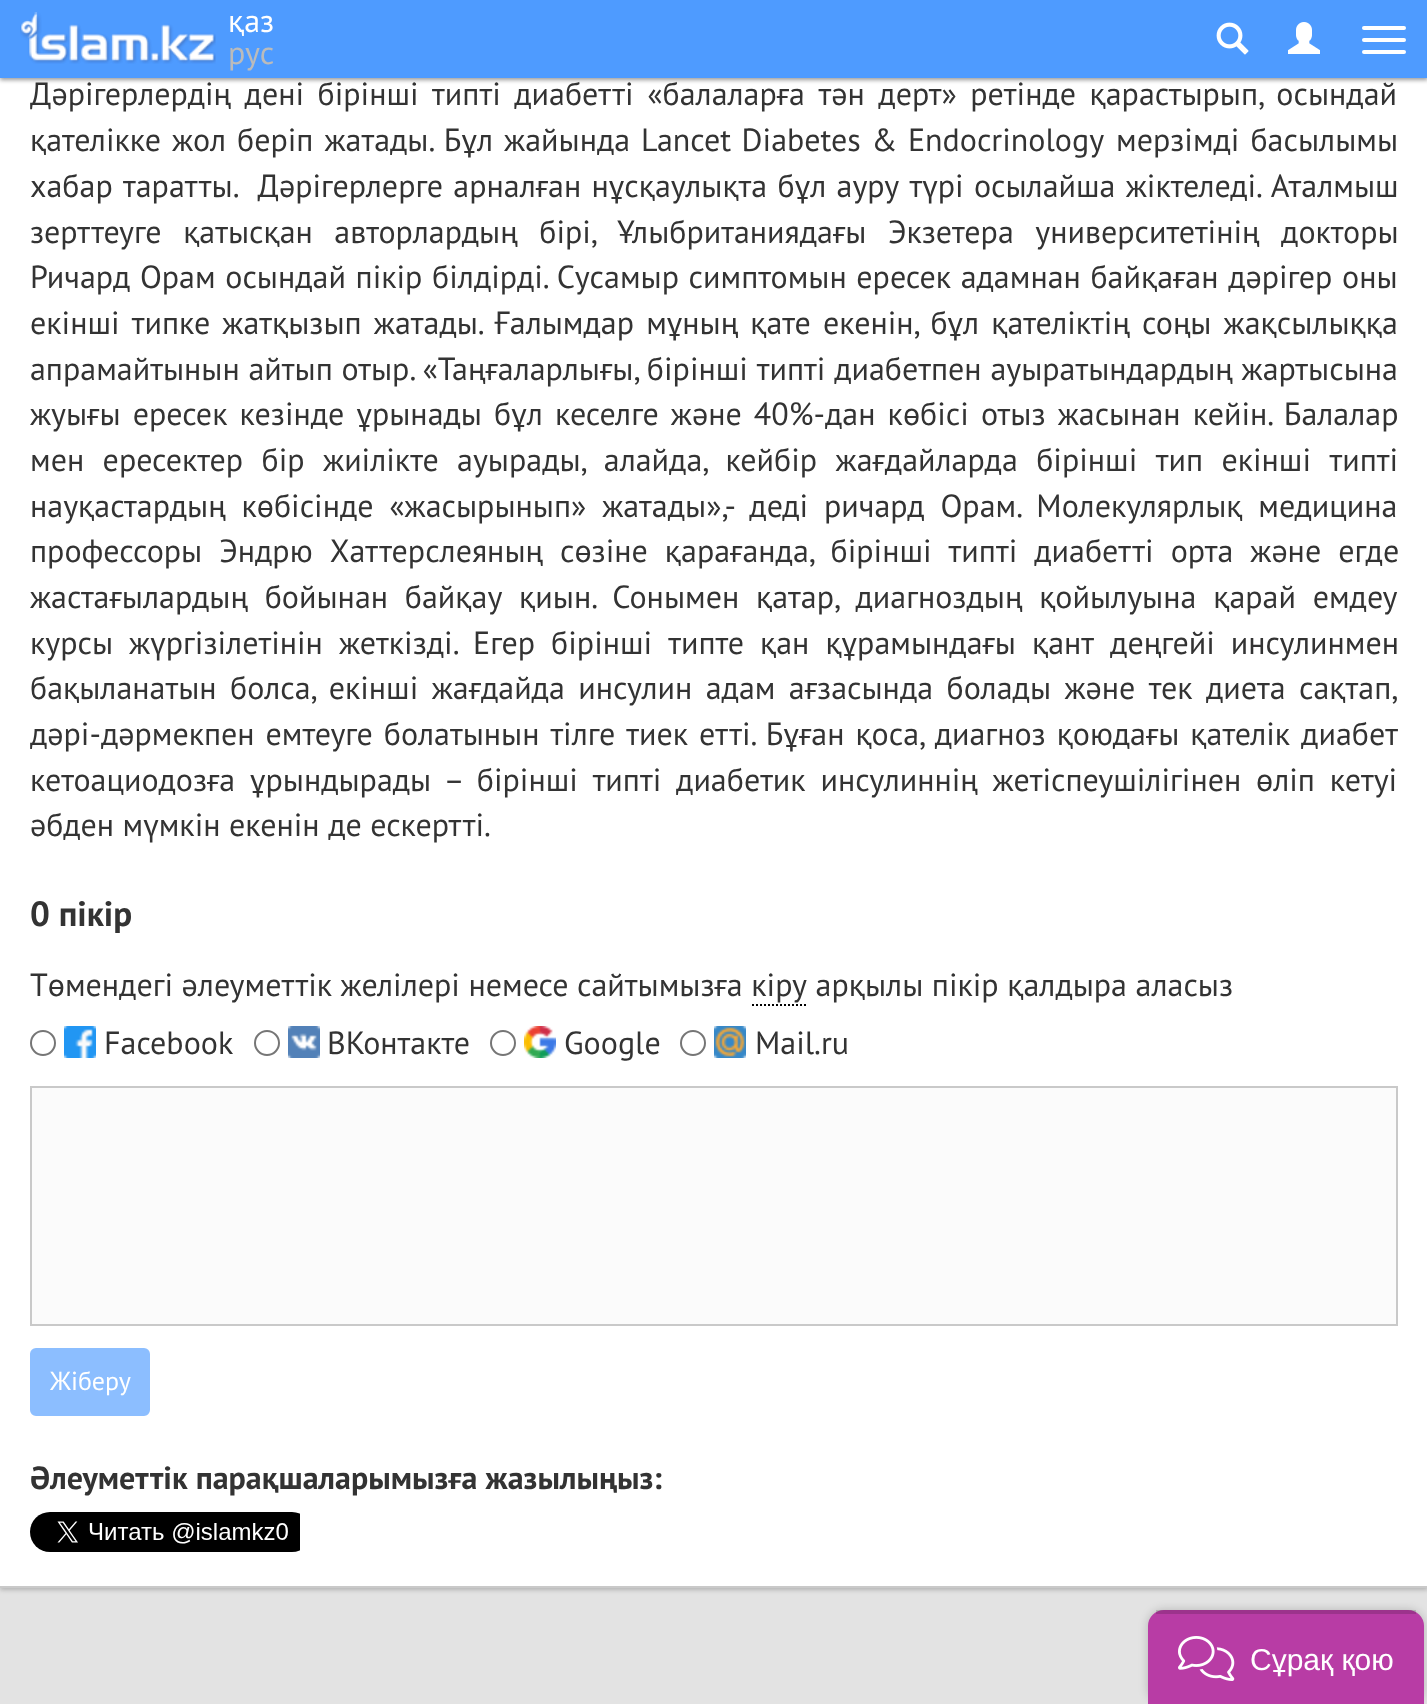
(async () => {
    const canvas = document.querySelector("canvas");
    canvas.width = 1427;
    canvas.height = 1704;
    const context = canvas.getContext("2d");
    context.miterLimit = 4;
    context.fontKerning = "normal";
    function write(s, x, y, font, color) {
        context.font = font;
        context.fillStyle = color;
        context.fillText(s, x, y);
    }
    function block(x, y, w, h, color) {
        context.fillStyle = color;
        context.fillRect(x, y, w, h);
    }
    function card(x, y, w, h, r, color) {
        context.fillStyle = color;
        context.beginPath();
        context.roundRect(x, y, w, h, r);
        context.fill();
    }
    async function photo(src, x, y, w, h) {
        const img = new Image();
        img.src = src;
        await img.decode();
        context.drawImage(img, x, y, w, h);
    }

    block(0, 0, 1427, 1704, "rgb(227, 227, 227)");
    context.fillStyle = "rgb(179, 179, 179)";
    context.filter = "blur(2px)";
    context.beginPath();
    context.rect(0, -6, 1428, 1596);
    context.fill();
    context.filter = "none";
    block(0, 78, 1427, 1508, "rgb(255, 255, 255)");
    context.fillStyle = "rgb(153, 153, 153)";
    context.filter = "blur(2px)";
    context.beginPath();
    context.rect(0, 2, 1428, 78);
    context.fill();
    context.filter = "none";
    block(0, 0, 1427, 78, "rgb(78, 155, 255)");
    await photo("media/1.png", 20, 12, 196, 52);
    write("қаз", 228, 32, "32px PT Sans", "rgb(255, 255, 255)");
    write("рус", 228, 64, "32px PT Sans", "rgb(187, 187, 187)");
    await photo("media/2.png", 1216, 22, 33, 33);
    await photo("media/3.png", 1288, 22, 32, 32);
    card(1362, 26, 44, 4, 2, "rgb(255, 255, 255)");
    card(1362, 38, 44, 4, 2, "rgb(255, 255, 255)");
    card(1362, 50, 44, 4, 2, "rgb(255, 255, 255)");
    block(0, 1586, 1427, 2, "rgb(201, 201, 201)");
    context.wordSpacing = "5px";
    write("Дәрігерлердің дені бірінші типті диабетті «балаларға тән дерт» ретінде қарастырып, осындай", 30, 105, "32px PT Sans", "rgb(51, 51, 51)");
    context.wordSpacing = "2.5px";
    write("қателікке жол беріп жатады. Бұл жайында", 30, 151, "32px PT Sans", "rgb(51, 51, 51)");
    context.wordSpacing = "2px";
    write("Lancet Diabetes & Endocrinology", 641, 151, "32px PT Sans", "rgb(51, 51, 51)");
    context.wordSpacing = "2.5px";
    write("мерзімді басылымы", 1116, 151, "32px PT Sans", "rgb(51, 51, 51)");
    context.wordSpacing = "1.75px";
    write("хабар таратты.  Дәрігерлерге арналған нұсқаулықта бұл ауру түрі осылайша жіктеледі. Аталмыш", 30, 197, "32px PT Sans", "rgb(51, 51, 51)");
    context.wordSpacing = "13px";
    write("зерттеуге қатысқан авторлардың бірі, Ұлыбританиядағы Экзетера университетінің докторы", 30, 243, "32px PT Sans", "rgb(51, 51, 51)");
    context.wordSpacing = "1.1px";
    write("Ричард Орам осындай пікір білдірді. Сусамыр симптомын ересек адамнан байқаған дәрігер оны", 30, 288, "32px PT Sans", "rgb(51, 51, 51)");
    context.wordSpacing = "3.6px";
    write("екінші типке жатқызып жатады. Ғалымдар мұның қате екенін, бұл қателіктің соңы жақсылыққа", 30, 334, "32px PT Sans", "rgb(51, 51, 51)");
    context.wordSpacing = "0.25px";
    write("апрамайтынын айтып отыр. «Таңғаларлығы, бірінші типті диабетпен ауыратындардың жартысына", 30, 380, "32px PT Sans", "rgb(51, 51, 51)");
    context.wordSpacing = "3.6px";
    write("жуығы ересек кезінде ұрынады бұл кеселге және 40%-дан көбісі отыз жасынан кейін. Балалар", 30, 425, "32px PT Sans", "rgb(51, 51, 51)");
    context.wordSpacing = "9.9px";
    write("мен ересектер бір жиілікте ауырады, алайда, кейбір жағдайларда бірінші тип екінші типті", 30, 471, "32px PT Sans", "rgb(51, 51, 51)");
    context.wordSpacing = "7.25px";
    write("науқастардың көбісінде «жасырынып» жатады»,- деді ричард Орам. Молекулярлық медицина", 30, 517, "32px PT Sans", "rgb(51, 51, 51)");
    context.wordSpacing = "8.5px";
    write("профессоры Эндрю Хаттерслеяның сөзіне қарағанда, бірінші типті диабетті орта және егде", 30, 562, "32px PT Sans", "rgb(51, 51, 51)");
    context.wordSpacing = "8.25px";
    write("жастағылардың бойынан байқау қиын. Сонымен қатар, диагноздың қойылуына қарай емдеу", 30, 608, "32px PT Sans", "rgb(51, 51, 51)");
    context.wordSpacing = "7.5px";
    write("курсы жүргізілетінін жеткізді. Егер бірінші типте қан құрамындағы қант деңгейі инсулинмен", 30, 654, "32px PT Sans", "rgb(51, 51, 51)");
    context.wordSpacing = "4.9px";
    write("бақыланатын болса, екінші жағдайда инсулин адам ағзасында болады және тек диета сақтап,", 30, 699, "32px PT Sans", "rgb(51, 51, 51)");
    context.wordSpacing = "2.4px";
    write("дәрі-дәрмекпен емтеуге болатынын тілге тиек етті. Бұған қоса, диагноз қоюдағы қателік диабет", 30, 745, "32px PT Sans", "rgb(51, 51, 51)");
    context.wordSpacing = "6.25px";
    write("кетоациодозға ұрындырады – бірінші типті диабетик инсулиннің жетіспеушілігінен өліп кетуі", 30, 791, "32px PT Sans", "rgb(51, 51, 51)");
    context.wordSpacing = "0px";
    write("әбден мүмкін екенін де ескертті.", 30, 836, "32px PT Sans", "rgb(51, 51, 51)");
    write("0 пікір", 30, 926, "bold 35px PT Sans", "rgb(51, 51, 51)");
    write("Төмендегі әлеуметтік желілері немесе сайтымызға кіру арқылы пікір қалдыра аласыз", 30, 996, "32px PT Sans", "rgb(51, 51, 51)");
    context.beginPath();
    context.moveTo(752, 1005);
    context.lineTo(808, 1005);
    context.strokeStyle = "rgb(0, 0, 0)";
    context.lineWidth = 2;
    context.setLineDash([2, 2]);
    context.stroke();
    context.beginPath();
    context.arc(43, 1043, 12, 0, Math.PI * 2);
    context.strokeStyle = "rgb(118, 118, 118)";
    context.setLineDash([]);
    context.stroke();
    await photo("media/4.png", 64, 1026, 32, 32);
    write("Facebook", 104, 1054, "32px PT Sans", "rgb(51, 51, 51)");
    context.beginPath();
    context.arc(267, 1043, 12, 0, Math.PI * 2);
    context.stroke();
    await photo("media/5.png", 288, 1026, 32, 32);
    write("ВКонтакте", 327, 1054, "32px PT Sans", "rgb(51, 51, 51)");
    context.beginPath();
    context.arc(503, 1043, 12, 0, Math.PI * 2);
    context.stroke();
    await photo("media/6.png", 524, 1026, 32, 32);
    write("Google", 564, 1054, "32px PT Sans", "rgb(51, 51, 51)");
    context.beginPath();
    context.arc(693, 1043, 12, 0, Math.PI * 2);
    context.stroke();
    await photo("media/7.png", 714, 1026, 32, 32);
    write("Mail.ru", 755, 1054, "32px PT Sans", "rgb(51, 51, 51)");
    context.fillStyle = "rgb(251, 251, 251)";
    context.beginPath();
    context.rect(31, 1087, 1366, 238);
    context.fill();
    context.strokeStyle = "rgb(201, 201, 201)";
    context.stroke();
    context.fillStyle = "rgb(140, 190, 255)";
    context.beginPath();
    context.roundRect(31, 1349, 118, 66, 5);
    context.fill();
    context.strokeStyle = "rgb(140, 190, 255)";
    context.stroke();
    write("Жіберу", 50, 1390, "26px PT Sans", "rgb(255, 255, 255)");
    write("Әлеуметтік парақшаларымызға жазылыңыз:", 30, 1489, "bold 32px PT Sans", "rgb(51, 51, 51)");
    await photo("media/8.png", 30, 1512, 270, 40);
    context.fillStyle = "rgba(0, 0, 0, 0.2)";
    context.filter = "blur(5px)";
    context.beginPath();
    context.roundRect(1148, 1610, 276, 94, 16);
    context.fill();
    context.filter = "none";
    context.fillStyle = "rgb(184, 60, 165)";
    context.beginPath();
    context.roundRect(1148, 1610, 276, 94, [16, 16, 0, 0]);
    context.fill();
    block(1156, 1610, 260, 4, "rgba(0, 0, 0, 0.15)");
    await photo("media/9.png", 1178, 1636, 57, 45);
    write("Сұрақ қою", 1250, 1670, "30px Liberation Sans", "rgb(255, 255, 255)");
})();
